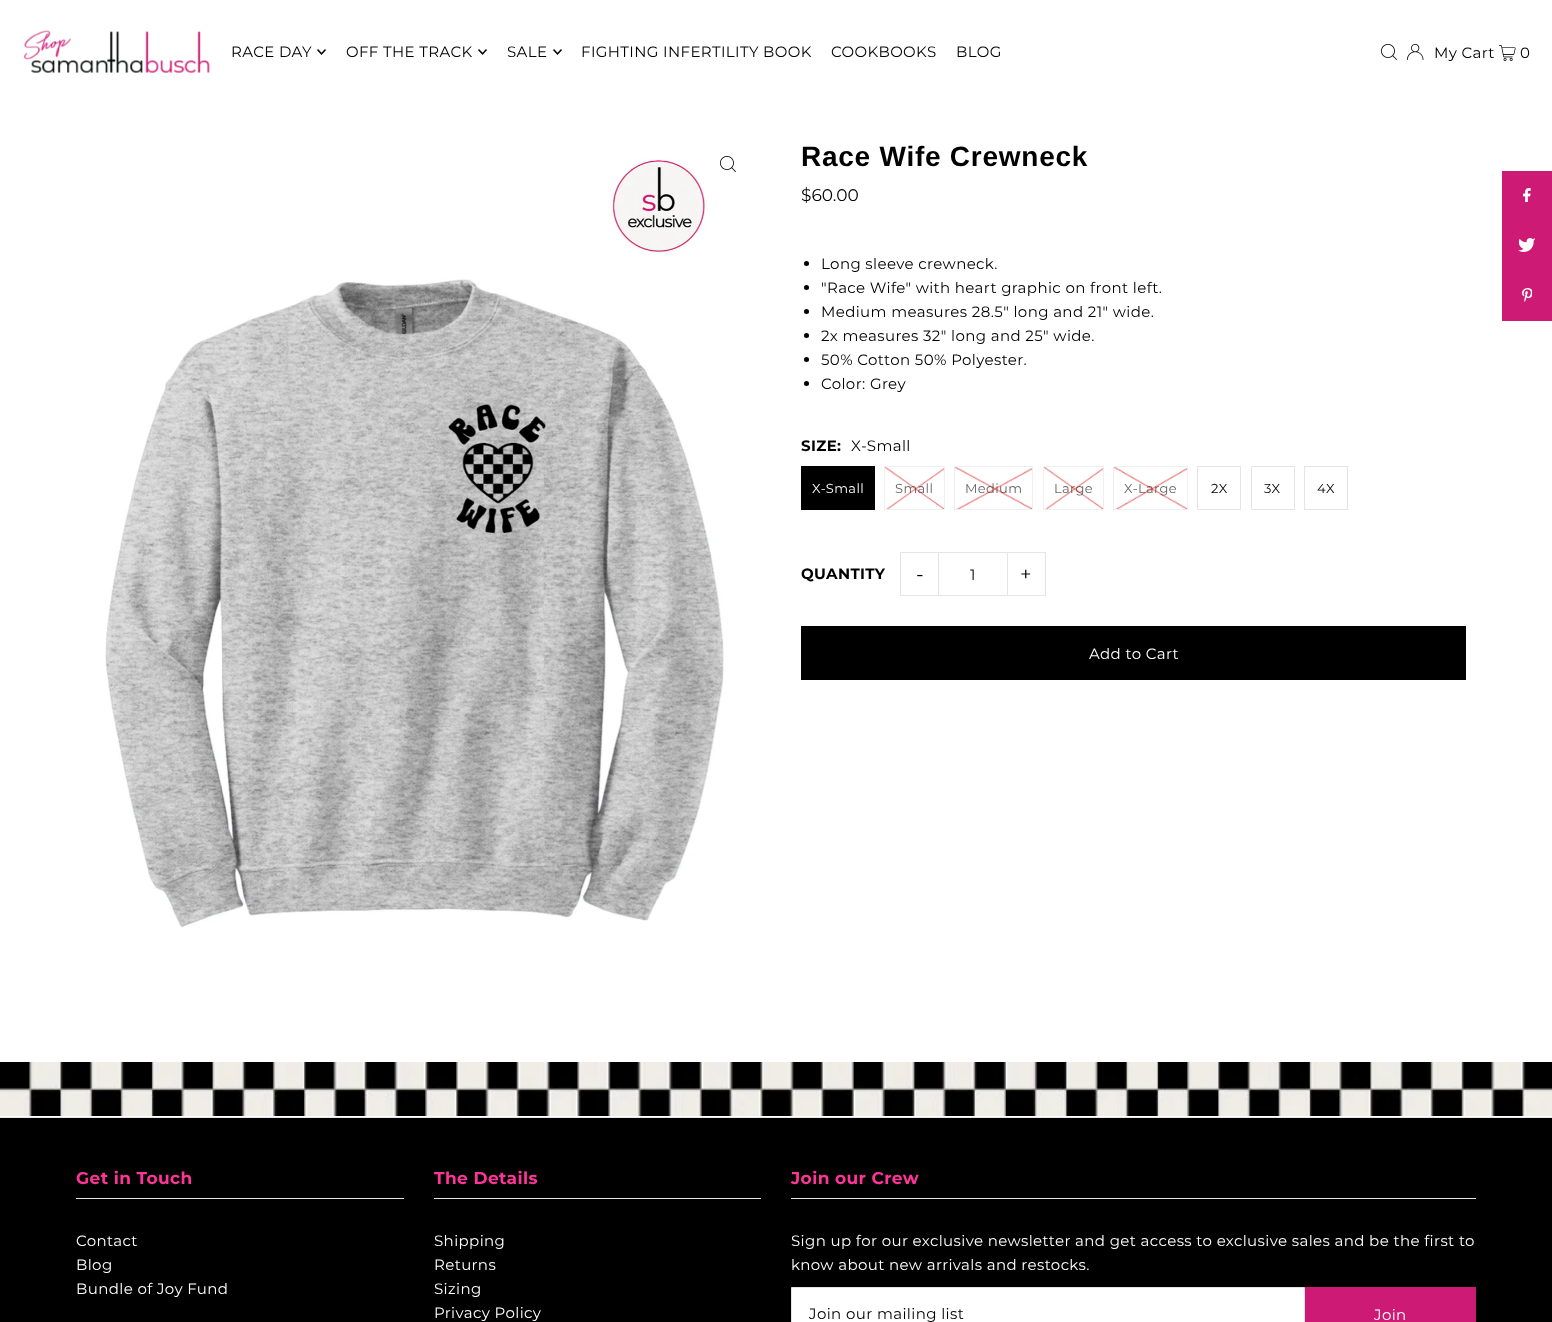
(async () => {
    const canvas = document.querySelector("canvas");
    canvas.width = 1552;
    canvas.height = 1322;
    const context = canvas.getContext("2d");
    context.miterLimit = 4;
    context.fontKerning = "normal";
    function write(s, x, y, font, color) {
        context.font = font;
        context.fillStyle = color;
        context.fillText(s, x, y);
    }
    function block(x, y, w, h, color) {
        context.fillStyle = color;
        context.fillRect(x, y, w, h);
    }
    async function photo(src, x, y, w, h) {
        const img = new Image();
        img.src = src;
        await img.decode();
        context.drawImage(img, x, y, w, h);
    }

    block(0, 0, 1552, 1322, "rgb(255, 255, 255)");
    await photo("media/1.png", 23, 30, 187, 43);
    context.letterSpacing = "0.38px";
    write("RACE DAY", 231, 57, "15px Montserrat", "rgb(0, 0, 0)");
    await photo("media/2.png", 317, 49, 9, 6);
    write("OFF THE TRACK", 346, 57, "15px Montserrat", "rgb(0, 0, 0)");
    await photo("media/2.png", 478, 49, 9, 6);
    write("SALE", 507, 57, "15px Montserrat", "rgb(0, 0, 0)");
    await photo("media/2.png", 553, 49, 9, 6);
    write("FIGHTING INFERTILITY BOOK", 581, 57, "15px Montserrat", "rgb(0, 0, 0)");
    write("COOKBOOKS", 831, 57, "15px Montserrat", "rgb(0, 0, 0)");
    write("BLOG", 956, 57, "15px Montserrat", "rgb(0, 0, 0)");
    await photo("media/3.png", 1381, 44, 16, 16);
    await photo("media/4.png", 1407, 44, 17, 16);
    write("My Cart", 1434, 58, "15px Montserrat", "rgb(0, 0, 0)");
    await photo("media/5.png", 1499, 45, 17, 16);
    write("0", 1520, 58, "15px Montserrat", "rgb(0, 0, 0)");
    await photo("media/6.png", 105, 158, 619, 770);
    await photo("media/3.png", 720, 156, 16, 16);
    context.letterSpacing = "0.75px";
    write("Race Wife Crewneck", 801, 166, "bold 28px Liberation Sans", "rgb(0, 0, 0)");
    context.letterSpacing = "0px";
    write("$60.00", 801, 201, "17px Montserrat", "rgb(0, 0, 0)");
    context.beginPath();
    context.arc(806.5, 263.5, 2.5, 0, Math.PI * 2);
    context.fill();
    context.letterSpacing = "0.38px";
    write("Long sleeve crewneck.", 821, 269, "15px Montserrat", "rgb(0, 0, 0)");
    context.beginPath();
    context.arc(806.5, 287.5, 2.5, 0, Math.PI * 2);
    context.fill();
    write("\"Race Wife\" with heart graphic on front left.", 821, 293, "15px Montserrat", "rgb(0, 0, 0)");
    context.beginPath();
    context.arc(806.5, 311.5, 2.5, 0, Math.PI * 2);
    context.fill();
    write("Medium measures 28.5\" long and 21\" wide.", 821, 317, "15px Montserrat", "rgb(0, 0, 0)");
    context.beginPath();
    context.arc(806.5, 335.5, 2.5, 0, Math.PI * 2);
    context.fill();
    write("2x measures 32\" long and 25\" wide.", 821, 341, "15px Montserrat", "rgb(0, 0, 0)");
    context.beginPath();
    context.arc(806.5, 359.5, 2.5, 0, Math.PI * 2);
    context.fill();
    write("50% Cotton 50% Polyester.", 821, 365, "15px Montserrat", "rgb(0, 0, 0)");
    context.beginPath();
    context.arc(806.5, 383.5, 2.5, 0, Math.PI * 2);
    context.fill();
    write("Color: Grey", 821, 389, "15px Montserrat", "rgb(0, 0, 0)");
    write("SIZE:", 801, 451, "bold 15px Montserrat", "rgb(0, 0, 0)");
    write("X-Small", 851, 451, "15px Montserrat", "rgb(0, 0, 0)");
    block(801, 466, 74, 44, "rgb(0, 0, 0)");
    write("X-Small", 812, 493, "13px Montserrat", "rgb(255, 255, 255)");
    context.strokeStyle = "rgb(239, 239, 239)";
    context.strokeRect(884.5, 466.5, 60, 43);
    write("Small", 895, 493, "13px Montserrat", "rgb(102, 102, 102)");
    await photo("media/7.png", 885, 467, 59, 42);
    context.strokeRect(954.5, 466.5, 78, 43);
    write("Medium", 965, 493, "13px Montserrat", "rgb(102, 102, 102)");
    await photo("media/8.png", 955, 467, 77, 42);
    context.strokeRect(1043.5, 466.5, 60, 43);
    write("Large", 1054, 493, "13px Montserrat", "rgb(102, 102, 102)");
    await photo("media/9.png", 1044, 467, 59, 42);
    context.strokeRect(1113.5, 466.5, 74, 43);
    write("X-Large", 1124, 493, "13px Montserrat", "rgb(102, 102, 102)");
    await photo("media/10.png", 1114, 467, 73, 42);
    context.strokeStyle = "rgb(229, 229, 229)";
    context.strokeRect(1197.5, 466.5, 43, 43);
    write("2X", 1211, 493, "13px Montserrat", "rgb(0, 0, 0)");
    context.strokeRect(1251.5, 466.5, 43, 43);
    write("3X", 1264, 493, "13px Montserrat", "rgb(0, 0, 0)");
    context.strokeRect(1304.5, 466.5, 43, 43);
    write("4X", 1317, 493, "13px Montserrat", "rgb(0, 0, 0)");
    write("QUANTITY", 801, 579, "bold 15px Montserrat", "rgb(0, 0, 0)");
    block(900, 552, 38, 1, "rgb(229, 229, 229)");
    block(900, 595, 38, 1, "rgb(229, 229, 229)");
    block(900, 552, 1, 44, "rgb(229, 229, 229)");
    context.letterSpacing = "0px";
    write("-", 916, 581, "20px Montserrat", "rgb(0, 0, 0)");
    context.strokeRect(938.5, 552.5, 69, 43);
    context.letterSpacing = "0.38px";
    write("1", 970, 580, "15px Montserrat", "rgb(0, 0, 0)");
    block(1008, 552, 38, 1, "rgb(229, 229, 229)");
    block(1045, 552, 1, 44, "rgb(229, 229, 229)");
    block(1008, 595, 38, 1, "rgb(229, 229, 229)");
    context.letterSpacing = "0px";
    write("+", 1020, 581, "20px Montserrat", "rgb(0, 0, 0)");
    block(801, 626, 665, 54, "rgb(0, 0, 0)");
    context.letterSpacing = "0.38px";
    write("Add to Cart", 1089, 659, "15px Montserrat", "rgb(255, 255, 255)");
    block(1502, 171, 50, 150, "rgb(205, 26, 116)");
    await photo("media/11.png", 1523, 188, 8, 14);
    await photo("media/12.png", 1518, 238, 17, 14);
    await photo("media/13.png", 1522, 288, 10, 14);
    await photo("media/14.png", 0, 1062, 1552, 54);
    block(0, 1118, 1552, 204, "rgb(0, 0, 0)");
    block(0, 1117, 1552, 1, "rgb(229, 229, 229)");
    block(76, 1198, 328, 1, "rgb(229, 229, 229)");
    context.letterSpacing = "0.4px";
    write("Get in Touch", 76, 1184, "bold 17px Montserrat", "rgb(255, 52, 152)");
    context.letterSpacing = "0.38px";
    write("Contact", 76, 1246, "15px Montserrat", "rgb(255, 255, 255)");
    write("Blog", 76, 1270, "15px Montserrat", "rgb(255, 255, 255)");
    write("Bundle of Joy Fund", 76, 1294, "15px Montserrat", "rgb(255, 255, 255)");
    block(434, 1198, 327, 1, "rgb(229, 229, 229)");
    context.letterSpacing = "0.4px";
    write("The Details", 434, 1184, "bold 17px Montserrat", "rgb(255, 52, 152)");
    context.letterSpacing = "0.38px";
    write("Shipping", 434, 1246, "15px Montserrat", "rgb(255, 255, 255)");
    write("Returns", 434, 1270, "15px Montserrat", "rgb(255, 255, 255)");
    write("Sizing", 434, 1294, "15px Montserrat", "rgb(255, 255, 255)");
    write("Privacy Policy", 434, 1318, "15px Montserrat", "rgb(255, 255, 255)");
    block(791, 1198, 685, 1, "rgb(229, 229, 229)");
    context.letterSpacing = "0.4px";
    write("Join our Crew", 791, 1184, "bold 17px Montserrat", "rgb(255, 52, 152)");
    context.letterSpacing = "0.38px";
    write("Sign up for our exclusive newsletter and get access to exclusive sales and be the first to", 791, 1246, "15px Montserrat", "rgb(255, 255, 255)");
    write("know about new arrivals and restocks.", 791, 1270, "15px Montserrat", "rgb(255, 255, 255)");
    context.beginPath();
    context.rect(791.5, 1287.5, 513, 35);
    context.fill();
    context.stroke();
    write("Join our mailing list", 809, 1319, "15px Montserrat", "rgb(0, 0, 0)");
    block(1305, 1287, 171, 35, "rgb(205, 26, 116)");
    write("Join", 1374, 1320, "15px Montserrat", "rgb(255, 255, 255)");
})();
